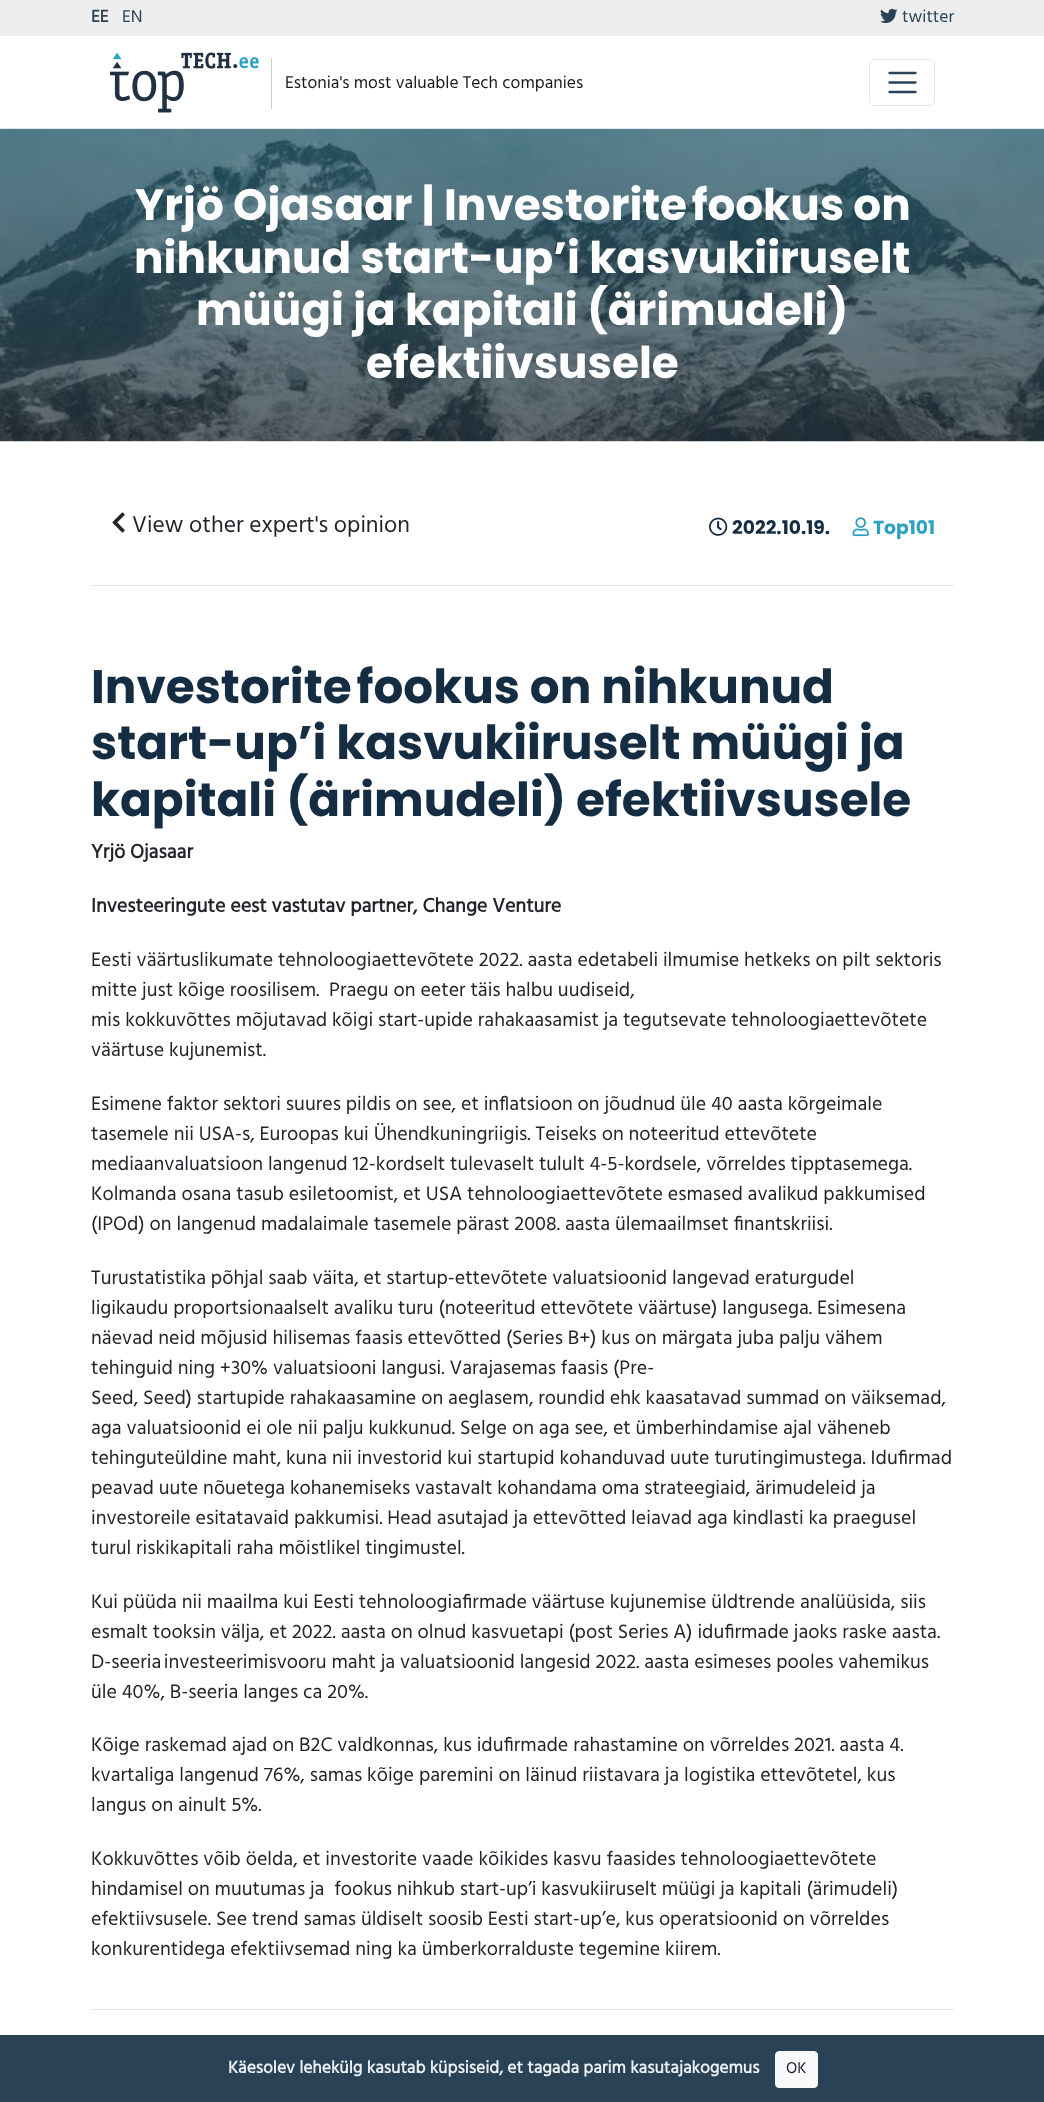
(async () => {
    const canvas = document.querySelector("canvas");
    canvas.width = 1044;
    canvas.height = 2102;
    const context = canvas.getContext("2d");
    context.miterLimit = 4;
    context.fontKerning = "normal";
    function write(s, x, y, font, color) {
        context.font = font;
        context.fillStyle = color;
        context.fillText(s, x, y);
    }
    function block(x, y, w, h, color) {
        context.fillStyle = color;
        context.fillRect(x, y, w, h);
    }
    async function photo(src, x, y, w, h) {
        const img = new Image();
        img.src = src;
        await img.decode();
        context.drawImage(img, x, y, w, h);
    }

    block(0, 0, 1044, 2102, "rgb(255, 255, 255)");
    block(0, 0, 1044, 36, "rgb(238, 238, 238)");
    write("EE", 91, 22, "bold 17.5px Hind", "rgb(41, 66, 86)");
    write("EN", 122, 22, "17.5px Hind", "rgb(41, 66, 86)");
    await photo("media/1.png", 880, 8, 18, 16);
    write("twitter", 902, 22, "17.5px Hind", "rgb(41, 66, 86)");
    await photo("media/2.png", 110, 52, 149, 61);
    block(271, 58, 1, 51, "rgb(204, 204, 204)");
    write("Estonia's most valuable Tech companies", 285, 88, "17.5px Hind", "rgb(26, 26, 26)");
    context.beginPath();
    context.roundRect(869.5, 59.5, 65, 46, 4.5);
    context.strokeStyle = "rgb(230, 230, 230)";
    context.stroke();
    context.beginPath();
    context.moveTo(889.5, 73);
    context.lineTo(915.5, 73);
    context.moveTo(889.5, 82.5);
    context.lineTo(915.5, 82.5);
    context.moveTo(889.5, 92);
    context.lineTo(915.5, 92);
    context.strokeStyle = "rgb(41, 66, 86)";
    context.lineWidth = 2.3;
    context.lineCap = "round";
    context.stroke();
    await photo("media/3.png", 0, 128, 1044, 314);
    write("Yrjö Ojasaar | Investorite fookus on", 135, 220, "bold 43.75px Poppins", "rgb(255, 255, 255)");
    write("nihkunud start-up’i kasvukiiruselt", 134, 273, "bold 43.75px Poppins", "rgb(255, 255, 255)");
    write("müügi ja kapitali (ärimudeli)", 196, 325, "bold 43.75px Poppins", "rgb(255, 255, 255)");
    write("efektiivsusele", 366, 378, "bold 43.75px Poppins", "rgb(255, 255, 255)");
    await photo("media/4.png", 112, 512, 13, 21);
    write("View other expert's opinion", 132, 532, "23.5px Hind", "rgb(33, 37, 41)");
    await photo("media/5.png", 709, 517, 19, 19);
    write("2022.10.19.", 732, 534, "bold 18.75px Poppins", "rgb(21, 45, 66)");
    await photo("media/6.png", 852, 517, 17, 20);
    write("Top101", 873, 534, "bold 18.75px Poppins", "rgb(46, 161, 194)");
    block(91, 585, 863, 1, "rgb(230, 230, 230)");
    write("Investorite fookus on nihkunud", 91, 703, "bold 46.9px Poppins", "rgb(21, 45, 66)");
    write("start-up’i kasvukiiruselt müügi ja", 91, 759, "bold 46.9px Poppins", "rgb(21, 45, 66)");
    write("kapitali (ärimudeli) efektiivsusele", 91, 816, "bold 46.9px Poppins", "rgb(21, 45, 66)");
    write("Yrjö Ojasaar", 91, 858, "bold 20px Hind", "rgb(33, 37, 41)");
    write("Investeeringute eest vastutav partner, Change Venture", 91, 912, "bold 20px Hind", "rgb(33, 37, 41)");
    write("Eesti väärtuslikumate tehnoloogiaettevõtete 2022. aasta edetabeli ilmumise hetkeks on pilt sektoris", 91, 966, "20px Hind", "rgb(33, 37, 41)");
    write("mitte just kõige roosilisem.  Praegu on eeter täis halbu uudiseid,", 91, 996, "20px Hind", "rgb(33, 37, 41)");
    write("mis kokkuvõttes mõjutavad kõigi start-upide rahakaasamist ja tegutsevate tehnoloogiaettevõtete", 91, 1026, "20px Hind", "rgb(33, 37, 41)");
    write("väärtuse kujunemist.", 91, 1056, "20px Hind", "rgb(33, 37, 41)");
    write("Esimene faktor sektori suures pildis on see, et inflatsioon on jõudnud üle 40 aasta kõrgeimale", 91, 1110, "20px Hind", "rgb(33, 37, 41)");
    write("tasemele nii USA-s, Euroopas kui Ühendkuningriigis. Teiseks on noteeritud ettevõtete", 91, 1140, "20px Hind", "rgb(33, 37, 41)");
    write("mediaanvaluatsioon langenud 12-kordselt tulevaselt tulult 4-5-kordsele, võrreldes tipptasemega.", 91, 1170, "20px Hind", "rgb(33, 37, 41)");
    write("Kolmanda osana tasub esiletoomist, et USA tehnoloogiaettevõtete esmased avalikud pakkumised", 91, 1200, "20px Hind", "rgb(33, 37, 41)");
    write("(IPOd) on langenud madalaimale tasemele pärast 2008. aasta ülemaailmset finantskriisi.", 91, 1230, "20px Hind", "rgb(33, 37, 41)");
    write("Turustatistika põhjal saab väita, et startup-ettevõtete valuatsioonid langevad eraturgudel", 91, 1284, "20px Hind", "rgb(33, 37, 41)");
    write("ligikaudu proportsionaalselt avaliku turu (noteeritud ettevõtete väärtuse) langusega. Esimesena", 91, 1314, "20px Hind", "rgb(33, 37, 41)");
    write("näevad neid mõjusid hilisemas faasis ettevõtted (Series B+) kus on märgata juba palju vähem", 91, 1344, "20px Hind", "rgb(33, 37, 41)");
    write("tehinguid ning +30% valuatsiooni langusi. Varajasemas faasis (Pre-", 91, 1374, "20px Hind", "rgb(33, 37, 41)");
    write("Seed, Seed) startupide rahakaasamine on aeglasem, roundid ehk kaasatavad summad on väiksemad,", 91, 1404, "20px Hind", "rgb(33, 37, 41)");
    write("aga valuatsioonid ei ole nii palju kukkunud. Selge on aga see, et ümberhindamise ajal väheneb", 91, 1434, "20px Hind", "rgb(33, 37, 41)");
    write("tehinguteüldine maht, kuna nii investorid kui startupid kohanduvad uute turutingimustega. Idufirmad", 91, 1464, "20px Hind", "rgb(33, 37, 41)");
    write("peavad uute nõuetega kohanemiseks vastavalt kohandama oma strateegiaid, ärimudeleid ja", 91, 1494, "20px Hind", "rgb(33, 37, 41)");
    write("investoreile esitatavaid pakkumisi. Head asutajad ja ettevõtted leiavad aga kindlasti ka praegusel", 91, 1524, "20px Hind", "rgb(33, 37, 41)");
    write("turul riskikapitali raha mõistlikel tingimustel.", 91, 1554, "20px Hind", "rgb(33, 37, 41)");
    write("Kui püüda nii maailma kui Eesti tehnoloogiafirmade väärtuse kujunemise üldtrende analüüsida, siis", 91, 1608, "20px Hind", "rgb(33, 37, 41)");
    write("esmalt tooksin välja, et 2022. aasta on olnud kasvuetapi (post Series A) idufirmade jaoks raske aasta.", 91, 1638, "20px Hind", "rgb(33, 37, 41)");
    write("D-seeria investeerimisvooru maht ja valuatsioonid langesid 2022. aasta esimeses pooles vahemikus", 91, 1668, "20px Hind", "rgb(33, 37, 41)");
    write("üle 40%, B-seeria langes ca 20%.", 91, 1698, "20px Hind", "rgb(33, 37, 41)");
    write("Kõige raskemad ajad on B2C valdkonnas, kus idufirmade rahastamine on võrreldes 2021. aasta 4.", 91, 1751, "20px Hind", "rgb(33, 37, 41)");
    write("kvartaliga langenud 76%, samas kõige paremini on läinud riistavara ja logistika ettevõtetel, kus", 91, 1781, "20px Hind", "rgb(33, 37, 41)");
    write("langus on ainult 5%.", 91, 1811, "20px Hind", "rgb(33, 37, 41)");
    write("Kokkuvõttes võib öelda, et investorite vaade kõikides kasvu faasides tehnoloogiaettevõtete", 91, 1865, "20px Hind", "rgb(33, 37, 41)");
    write("hindamisel on muutumas ja  fookus nihkub start-up’i kasvukiiruselt müügi ja kapitali (ärimudeli)", 91, 1895, "20px Hind", "rgb(33, 37, 41)");
    write("efektiivsusele. See trend samas üldiselt soosib Eesti start-up’e, kus operatsioonid on võrreldes", 91, 1925, "20px Hind", "rgb(33, 37, 41)");
    write("konkurentidega efektiivsemad ning ka ümberkorralduste tegemine kiirem.", 91, 1955, "20px Hind", "rgb(33, 37, 41)");
    block(91, 2009, 863, 1, "rgb(230, 230, 230)");
    block(0, 2035, 1044, 67, "rgb(41, 66, 86)");
    write("Käesolev lehekülg kasutab küpsiseid, et tagada parim kasutajakogemus", 228, 2073, "bold 17.5px Hind", "rgb(236, 240, 241)");
    context.fillStyle = "rgb(248, 249, 250)";
    context.beginPath();
    context.roundRect(775.5, 2051.5, 42, 36, 3.5);
    context.fill();
    context.strokeStyle = "rgb(248, 249, 250)";
    context.lineWidth = 1;
    context.stroke();
    write("OK", 786, 2073, "16px Hind", "rgb(33, 37, 41)");
})();
